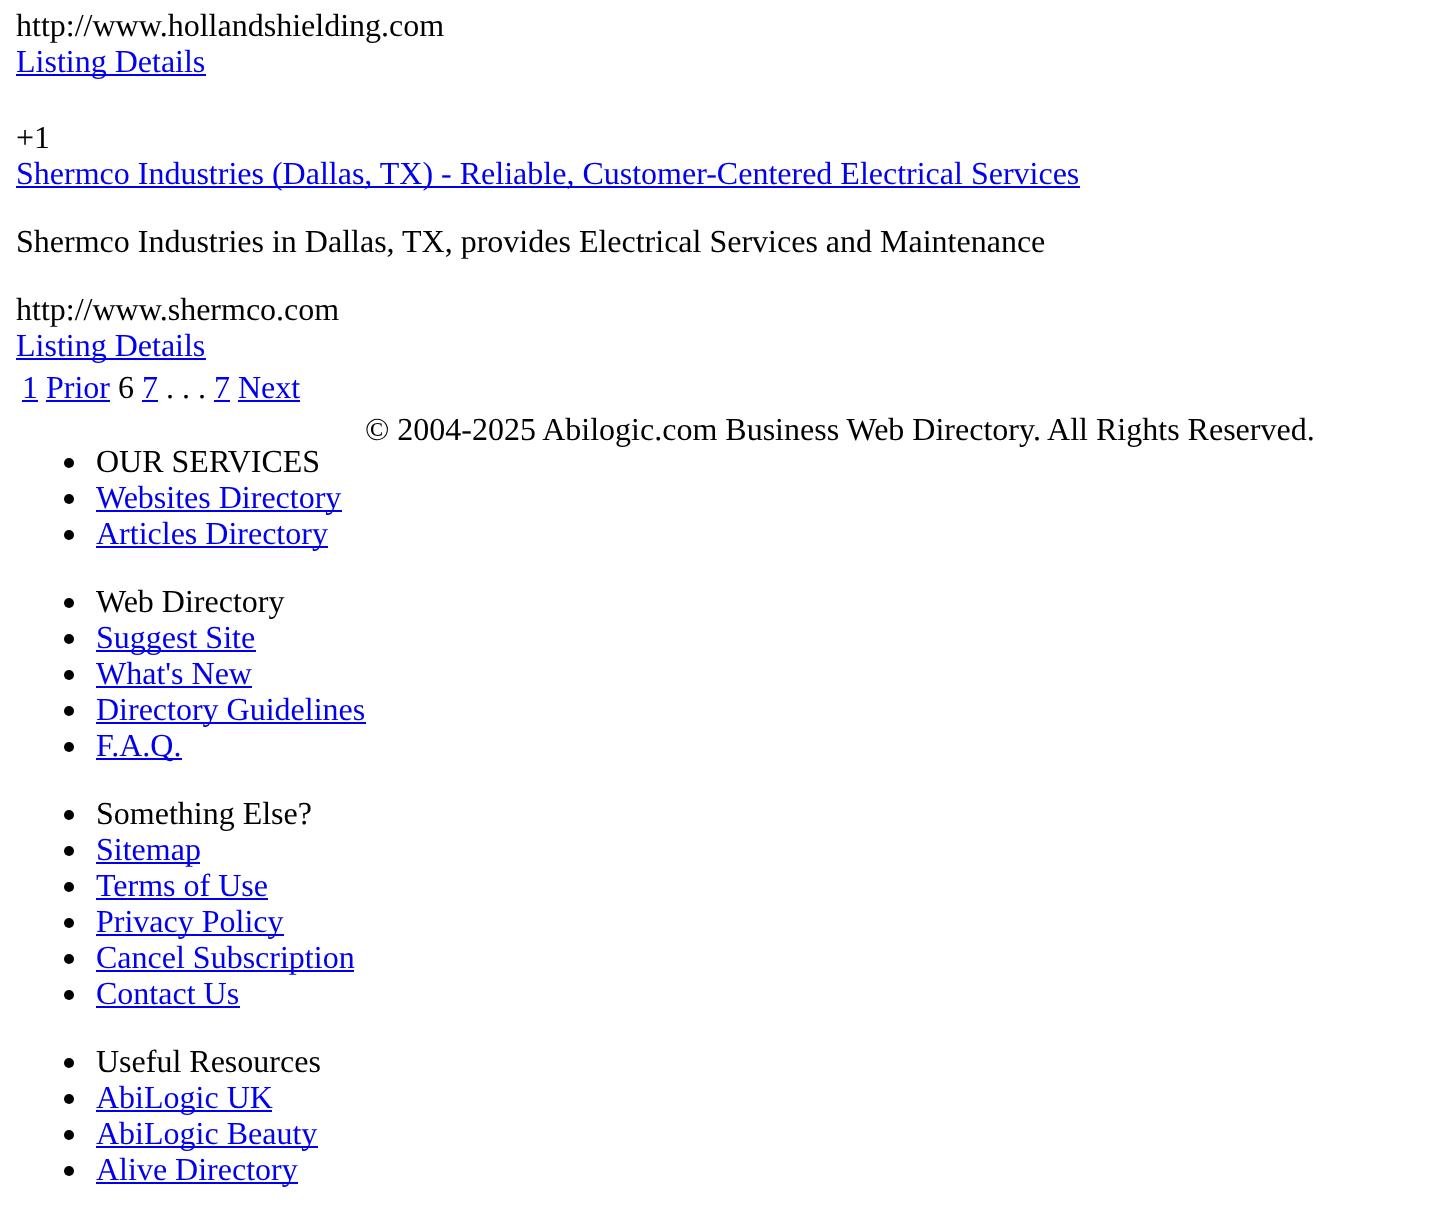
(async () => {
    const canvas = document.querySelector("canvas");
    canvas.width = 1446;
    canvas.height = 1220;
    const context = canvas.getContext("2d");
    context.miterLimit = 4;
    context.fontKerning = "normal";
    function write(s, x, y, font, color) {
        context.font = font;
        context.fillStyle = color;
        context.fillText(s, x, y);
    }
    function block(x, y, w, h, color) {
        context.fillStyle = color;
        context.fillRect(x, y, w, h);
    }

    block(0, 0, 1446, 1220, "rgb(255, 255, 255)");
    write("http://www.hollandshielding.com", 16, 36, "32px Liberation Serif", "rgb(0, 0, 0)");
    block(16, 74, 190, 2, "rgb(0, 0, 238)");
    write("Listing Details", 16, 72, "32px Liberation Serif", "rgb(0, 0, 238)");
    write("+1", 16, 148, "32px Liberation Serif", "rgb(0, 0, 0)");
    block(16, 186, 1064, 2, "rgb(0, 0, 238)");
    write("Shermco Industries (Dallas, TX) - Reliable, Customer-Centered Electrical Services", 16, 184, "32px Liberation Serif", "rgb(0, 0, 238)");
    write("Shermco Industries in Dallas, TX, provides Electrical Services and Maintenance", 16, 252, "32px Liberation Serif", "rgb(0, 0, 0)");
    write("http://www.shermco.com", 16, 320, "32px Liberation Serif", "rgb(0, 0, 0)");
    block(16, 358, 190, 2, "rgb(0, 0, 238)");
    write("Listing Details", 16, 356, "32px Liberation Serif", "rgb(0, 0, 238)");
    write("1 Prior", 22, 398, "32px Liberation Serif", "rgb(0, 0, 238)");
    block(22, 400, 16, 2, "rgb(0, 0, 238)");
    write("6", 118, 398, "32px Liberation Serif", "rgb(0, 0, 0)");
    write("7", 142, 398, "32px Liberation Serif", "rgb(0, 0, 238)");
    block(142, 400, 16, 2, "rgb(0, 0, 238)");
    write(". . .", 166, 398, "32px Liberation Serif", "rgb(0, 0, 0)");
    write("7 Next", 214, 398, "32px Liberation Serif", "rgb(0, 0, 238)");
    block(214, 400, 16, 2, "rgb(0, 0, 238)");
    block(46, 400, 64, 2, "rgb(0, 0, 238)");
    block(238, 400, 62, 2, "rgb(0, 0, 238)");
    write("© 2004-2025 Abilogic.com Business Web Directory. All Rights Reserved.", 365, 440, "32px Liberation Serif", "rgb(0, 0, 0)");
    context.beginPath();
    context.arc(69, 463, 5, 0, Math.PI * 2);
    context.fill();
    write("OUR SERVICES", 96, 472, "32px Liberation Serif", "rgb(0, 0, 0)");
    context.beginPath();
    context.arc(69, 499, 5, 0, Math.PI * 2);
    context.fill();
    block(96, 510, 246, 2, "rgb(0, 0, 238)");
    write("Websites Directory", 96, 508, "32px Liberation Serif", "rgb(0, 0, 238)");
    context.fillStyle = "rgb(0, 0, 0)";
    context.beginPath();
    context.arc(69, 535, 5, 0, Math.PI * 2);
    context.fill();
    block(96, 546, 232, 2, "rgb(0, 0, 238)");
    write("Articles Directory", 96, 544, "32px Liberation Serif", "rgb(0, 0, 238)");
    context.fillStyle = "rgb(0, 0, 0)";
    context.beginPath();
    context.arc(69, 603, 5, 0, Math.PI * 2);
    context.fill();
    write("Web Directory", 96, 612, "32px Liberation Serif", "rgb(0, 0, 0)");
    context.beginPath();
    context.arc(69, 639, 5, 0, Math.PI * 2);
    context.fill();
    block(96, 650, 160, 2, "rgb(0, 0, 238)");
    write("Suggest Site", 96, 648, "32px Liberation Serif", "rgb(0, 0, 238)");
    context.fillStyle = "rgb(0, 0, 0)";
    context.beginPath();
    context.arc(69, 675, 5, 0, Math.PI * 2);
    context.fill();
    write("What's New", 96, 684, "32px Liberation Serif", "rgb(0, 0, 238)");
    block(96, 686, 156, 2, "rgb(0, 0, 238)");
    context.fillStyle = "rgb(0, 0, 0)";
    context.beginPath();
    context.arc(69, 711, 5, 0, Math.PI * 2);
    context.fill();
    block(96, 722, 270, 2, "rgb(0, 0, 238)");
    write("Directory Guidelines", 96, 720, "32px Liberation Serif", "rgb(0, 0, 238)");
    context.fillStyle = "rgb(0, 0, 0)";
    context.beginPath();
    context.arc(69, 747, 5, 0, Math.PI * 2);
    context.fill();
    block(96, 758, 86, 2, "rgb(0, 0, 238)");
    write("F.A.Q.", 96, 756, "32px Liberation Serif", "rgb(0, 0, 238)");
    context.fillStyle = "rgb(0, 0, 0)";
    context.beginPath();
    context.arc(69, 815, 5, 0, Math.PI * 2);
    context.fill();
    write("Something Else?", 96, 824, "32px Liberation Serif", "rgb(0, 0, 0)");
    context.beginPath();
    context.arc(69, 851, 5, 0, Math.PI * 2);
    context.fill();
    block(96, 862, 104, 2, "rgb(0, 0, 238)");
    write("Sitemap", 96, 860, "32px Liberation Serif", "rgb(0, 0, 238)");
    context.fillStyle = "rgb(0, 0, 0)";
    context.beginPath();
    context.arc(69, 887, 5, 0, Math.PI * 2);
    context.fill();
    write("Terms of Use", 96, 896, "32px Liberation Serif", "rgb(0, 0, 238)");
    block(96, 898, 172, 2, "rgb(0, 0, 238)");
    context.fillStyle = "rgb(0, 0, 0)";
    context.beginPath();
    context.arc(69, 923, 5, 0, Math.PI * 2);
    context.fill();
    block(96, 934, 188, 2, "rgb(0, 0, 238)");
    write("Privacy Policy", 96, 932, "32px Liberation Serif", "rgb(0, 0, 238)");
    context.fillStyle = "rgb(0, 0, 0)";
    context.beginPath();
    context.arc(69, 959, 5, 0, Math.PI * 2);
    context.fill();
    block(96, 970, 258, 2, "rgb(0, 0, 238)");
    write("Cancel Subscription", 96, 968, "32px Liberation Serif", "rgb(0, 0, 238)");
    context.fillStyle = "rgb(0, 0, 0)";
    context.beginPath();
    context.arc(69, 995, 5, 0, Math.PI * 2);
    context.fill();
    write("Contact Us", 96, 1004, "32px Liberation Serif", "rgb(0, 0, 238)");
    block(96, 1006, 144, 2, "rgb(0, 0, 238)");
    context.fillStyle = "rgb(0, 0, 0)";
    context.beginPath();
    context.arc(69, 1063, 5, 0, Math.PI * 2);
    context.fill();
    write("Useful Resources", 96, 1072, "32px Liberation Serif", "rgb(0, 0, 0)");
    context.beginPath();
    context.arc(69, 1099, 5, 0, Math.PI * 2);
    context.fill();
    block(96, 1110, 176, 2, "rgb(0, 0, 238)");
    write("AbiLogic UK", 96, 1108, "32px Liberation Serif", "rgb(0, 0, 238)");
    context.fillStyle = "rgb(0, 0, 0)";
    context.beginPath();
    context.arc(69, 1135, 5, 0, Math.PI * 2);
    context.fill();
    block(96, 1146, 222, 2, "rgb(0, 0, 238)");
    write("AbiLogic Beauty", 96, 1144, "32px Liberation Serif", "rgb(0, 0, 238)");
    context.fillStyle = "rgb(0, 0, 0)";
    context.beginPath();
    context.arc(69, 1171, 5, 0, Math.PI * 2);
    context.fill();
    block(96, 1182, 202, 2, "rgb(0, 0, 238)");
    write("Alive Directory", 96, 1180, "32px Liberation Serif", "rgb(0, 0, 238)");
})();
